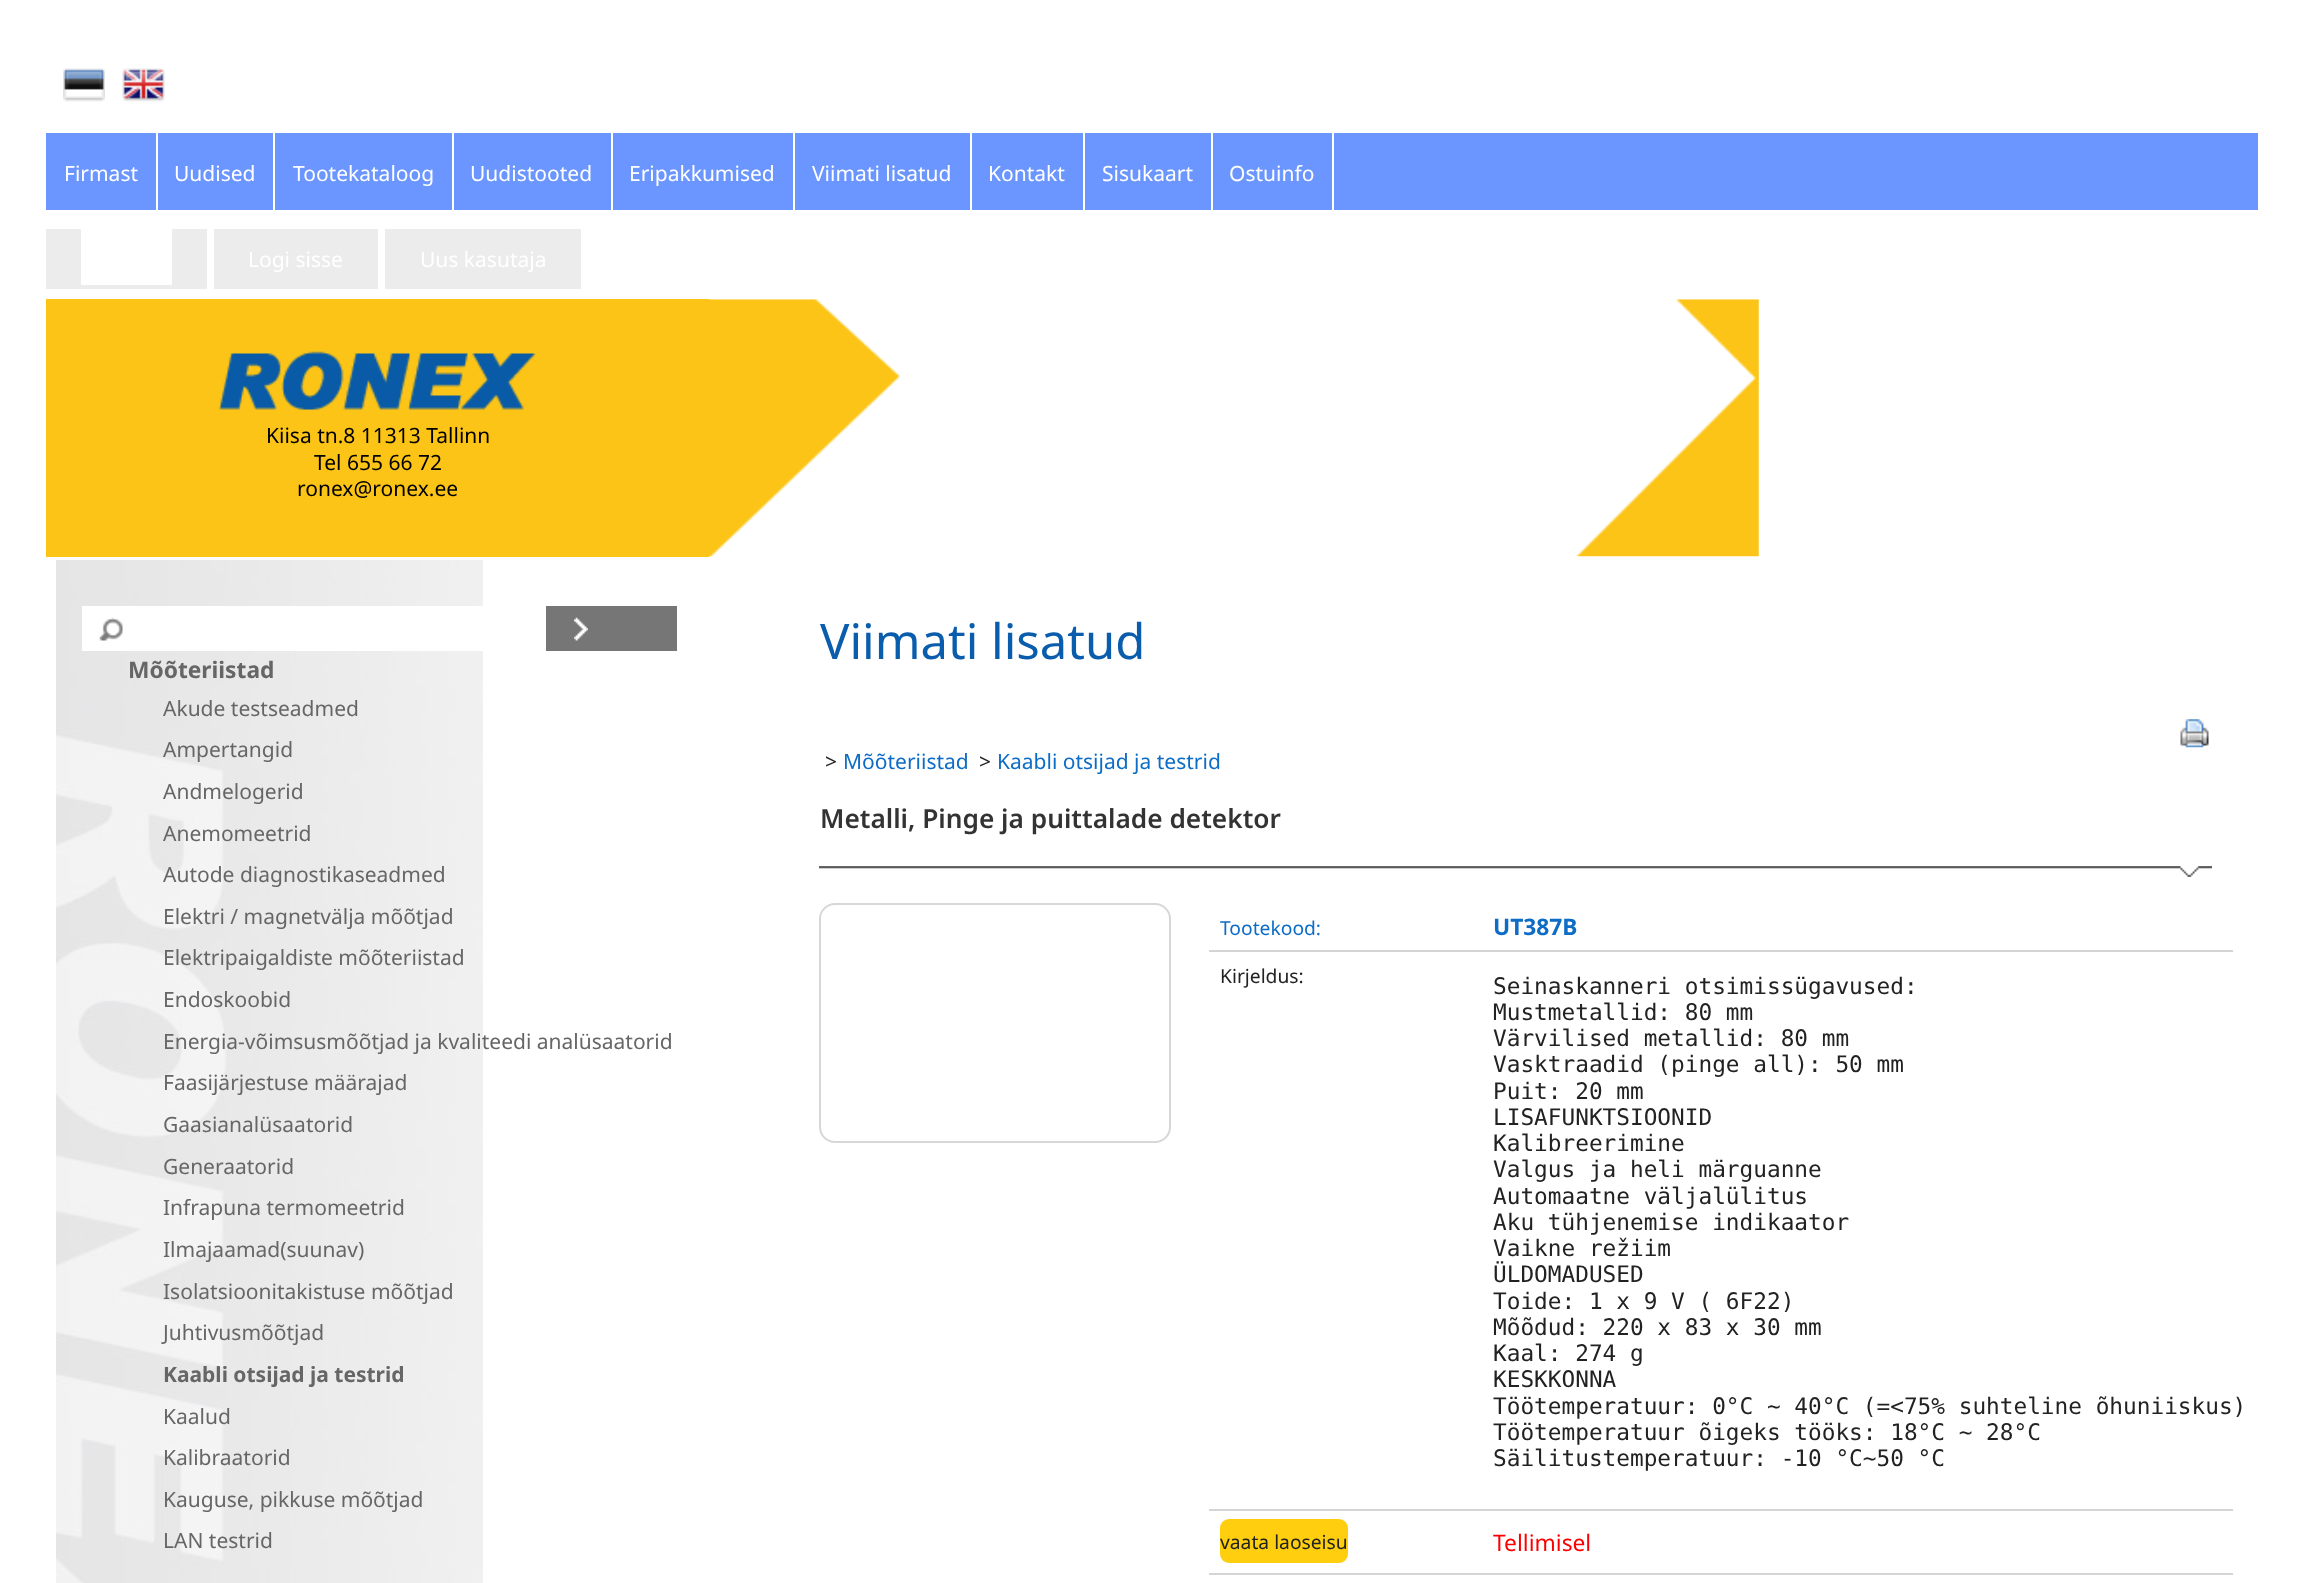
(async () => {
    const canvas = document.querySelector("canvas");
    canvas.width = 2302;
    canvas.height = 1583;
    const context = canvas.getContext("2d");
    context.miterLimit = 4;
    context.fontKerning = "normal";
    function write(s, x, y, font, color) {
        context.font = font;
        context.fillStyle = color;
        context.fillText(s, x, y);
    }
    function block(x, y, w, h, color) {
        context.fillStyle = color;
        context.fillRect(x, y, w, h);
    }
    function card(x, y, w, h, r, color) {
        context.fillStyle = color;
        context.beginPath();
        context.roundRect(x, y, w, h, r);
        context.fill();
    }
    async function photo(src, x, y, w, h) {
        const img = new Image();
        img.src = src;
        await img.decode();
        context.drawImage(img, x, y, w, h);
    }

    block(0, 0, 2302, 1583, "rgb(255, 255, 255)");
    await photo("media/1.png", 63, 68, 42, 34);
    await photo("media/2.png", 122, 68, 43, 34);
    block(46, 133, 2212, 77, "rgb(107, 150, 255)");
    block(156, 133, 2, 77, "rgb(255, 255, 255)");
    write("Firmast", 64, 181, "21px Noto Sans", "rgb(255, 255, 255)");
    block(273, 133, 2, 77, "rgb(255, 255, 255)");
    write("Uudised", 174, 181, "21px Noto Sans", "rgb(255, 255, 255)");
    block(452, 133, 2, 77, "rgb(255, 255, 255)");
    write("Tootekataloog", 293, 181, "21px Noto Sans", "rgb(255, 255, 255)");
    block(611, 133, 2, 77, "rgb(255, 255, 255)");
    write("Uudistooted", 470, 181, "21px Noto Sans", "rgb(255, 255, 255)");
    block(793, 133, 2, 77, "rgb(255, 255, 255)");
    write("Eripakkumised", 629, 181, "21px Noto Sans", "rgb(255, 255, 255)");
    block(970, 133, 2, 77, "rgb(255, 255, 255)");
    write("Viimati lisatud", 812, 181, "21px Noto Sans", "rgb(255, 255, 255)");
    block(1083, 133, 2, 77, "rgb(255, 255, 255)");
    write("Kontakt", 988, 181, "21px Noto Sans", "rgb(255, 255, 255)");
    block(1211, 133, 2, 77, "rgb(255, 255, 255)");
    write("Sisukaart", 1102, 181, "21px Noto Sans", "rgb(255, 255, 255)");
    block(1332, 133, 2, 77, "rgb(255, 255, 255)");
    write("Ostuinfo", 1229, 181, "21px Noto Sans", "rgb(255, 255, 255)");
    block(46, 229, 161, 60, "rgb(236, 236, 236)");
    block(81, 229, 91, 56, "rgb(255, 255, 255)");
    block(214, 229, 164, 60, "rgb(236, 236, 236)");
    write("Logi sisse", 248, 267, "21px Noto Sans", "rgb(255, 255, 255)");
    block(385, 229, 196, 60, "rgb(236, 236, 236)");
    write("Uus kasutaja", 420, 267, "21px Noto Sans", "rgb(255, 255, 255)");
    block(46, 299, 663, 258, "rgb(252, 196, 22)");
    await photo("media/3.png", 218, 351, 318, 59);
    write("Kiisa tn.8 11313 Tallinn", 266, 443, "21px Noto Sans", "rgb(0, 0, 0)");
    write("Tel 655 66 72", 314, 470, "21px Noto Sans", "rgb(0, 0, 0)");
    write("ronex@ronex.ee", 297, 496, "21px Noto Sans", "rgb(0, 0, 0)");
    await photo("media/4.png", 709, 299, 1050, 258);
    await photo("media/5.png", 56, 560, 427, 1023);
    block(82, 606, 401, 45, "rgb(255, 255, 255)");
    await photo("media/6.png", 99, 617, 24, 24);
    block(546, 606, 131, 45, "rgb(119, 118, 118)");
    await photo("media/7.png", 574, 617, 14, 24);
    write("Mõõteriistad", 128, 678, "bold 22.75px Noto Sans", "rgb(102, 102, 102)");
    write("Akude testseadmed", 163, 716, "21px Noto Sans", "rgb(102, 102, 102)");
    write("Ampertangid", 163, 757, "21px Noto Sans", "rgb(102, 102, 102)");
    write("Andmelogerid", 163, 799, "21px Noto Sans", "rgb(102, 102, 102)");
    write("Anemomeetrid", 163, 841, "21px Noto Sans", "rgb(102, 102, 102)");
    write("Autode diagnostikaseadmed", 163, 882, "21px Noto Sans", "rgb(102, 102, 102)");
    write("Elektri / magnetvälja mõõtjad", 163, 924, "21px Noto Sans", "rgb(102, 102, 102)");
    write("Elektripaigaldiste mõõteriistad", 163, 965, "21px Noto Sans", "rgb(102, 102, 102)");
    write("Endoskoobid", 163, 1007, "21px Noto Sans", "rgb(102, 102, 102)");
    write("Energia-võimsusmõõtjad ja kvaliteedi analüsaatorid", 163, 1049, "21px Noto Sans", "rgb(102, 102, 102)");
    write("Faasijärjestuse määrajad", 163, 1090, "21px Noto Sans", "rgb(102, 102, 102)");
    write("Gaasianalüsaatorid", 163, 1132, "21px Noto Sans", "rgb(102, 102, 102)");
    write("Generaatorid", 163, 1174, "21px Noto Sans", "rgb(102, 102, 102)");
    write("Infrapuna termomeetrid", 163, 1215, "21px Noto Sans", "rgb(102, 102, 102)");
    write("Ilmajaamad(suunav)", 163, 1257, "21px Noto Sans", "rgb(102, 102, 102)");
    write("Isolatsioonitakistuse mõõtjad", 163, 1299, "21px Noto Sans", "rgb(102, 102, 102)");
    write("Juhtivusmõõtjad", 163, 1340, "21px Noto Sans", "rgb(102, 102, 102)");
    write("Kaabli otsijad ja testrid", 163, 1382, "bold 21px Noto Sans", "rgb(102, 102, 102)");
    write("Kaalud", 163, 1424, "21px Noto Sans", "rgb(102, 102, 102)");
    write("Kalibraatorid", 163, 1465, "21px Noto Sans", "rgb(102, 102, 102)");
    write("Kauguse, pikkuse mõõtjad", 163, 1507, "21px Noto Sans", "rgb(102, 102, 102)");
    write("LAN testrid", 163, 1548, "21px Noto Sans", "rgb(102, 102, 102)");
    write("Viimati lisatud", 820, 659, "49px Noto Sans", "rgb(10, 93, 172)");
    await photo("media/8.png", 2180, 719, 29, 29);
    write(">", 825, 769, "21px Noto Sans", "rgb(34, 34, 34)");
    write("Mõõteriistad", 843, 769, "21px Noto Sans", "rgb(13, 108, 197)");
    write(">", 979, 769, "21px Noto Sans", "rgb(34, 34, 34)");
    write("Kaabli otsijad ja testrid", 997, 769, "21px Noto Sans", "rgb(13, 108, 197)");
    await photo("media/9.png", 819, 866, 1393, 11);
    write("Metalli, Pinge ja puittalade detektor", 820, 828, "600 26.25px Noto Sans", "rgb(51, 51, 51)");
    context.beginPath();
    context.roundRect(820, 904, 350, 238, 15);
    context.strokeStyle = "rgb(215, 215, 215)";
    context.lineWidth = 2;
    context.stroke();
    block(1209, 950, 1024, 2, "rgb(213, 213, 213)");
    write("Tootekood:", 1220, 935, "19.25px Noto Sans", "rgb(13, 108, 197)");
    write("UT387B", 1493, 935, "bold 22.75px Noto Sans", "rgb(13, 108, 197)");
    block(1209, 1509, 1024, 2, "rgb(213, 213, 213)");
    write("Kirjeldus:", 1220, 983, "19.25px Noto Sans", "rgb(34, 34, 34)");
    write("Seinaskanneri otsimissügavused:", 1493, 994, "22.75px DejaVu Sans Mono", "rgb(34, 34, 34)");
    write("Mustmetallid: 80 mm", 1493, 1020, "22.75px DejaVu Sans Mono", "rgb(34, 34, 34)");
    write("Värvilised metallid: 80 mm", 1493, 1046, "22.75px DejaVu Sans Mono", "rgb(34, 34, 34)");
    write("Vasktraadid (pinge all): 50 mm", 1493, 1072, "22.75px DejaVu Sans Mono", "rgb(34, 34, 34)");
    write("Puit: 20 mm", 1493, 1099, "22.75px DejaVu Sans Mono", "rgb(34, 34, 34)");
    write("LISAFUNKTSIOONID", 1493, 1125, "22.75px DejaVu Sans Mono", "rgb(34, 34, 34)");
    write("Kalibreerimine", 1493, 1151, "22.75px DejaVu Sans Mono", "rgb(34, 34, 34)");
    write("Valgus ja heli märguanne", 1493, 1177, "22.75px DejaVu Sans Mono", "rgb(34, 34, 34)");
    write("Automaatne väljalülitus", 1493, 1204, "22.75px DejaVu Sans Mono", "rgb(34, 34, 34)");
    write("Aku tühjenemise indikaator", 1493, 1230, "22.75px DejaVu Sans Mono", "rgb(34, 34, 34)");
    write("Vaikne režiim", 1493, 1256, "22.75px DejaVu Sans Mono", "rgb(34, 34, 34)");
    write("ÜLDOMADUSED", 1493, 1282, "22.75px DejaVu Sans Mono", "rgb(34, 34, 34)");
    write("Toide: 1 x 9 V ( 6F22)", 1493, 1309, "22.75px DejaVu Sans Mono", "rgb(34, 34, 34)");
    write("Mõõdud: 220 x 83 x 30 mm", 1493, 1335, "22.75px DejaVu Sans Mono", "rgb(34, 34, 34)");
    write("Kaal: 274 g", 1493, 1361, "22.75px DejaVu Sans Mono", "rgb(34, 34, 34)");
    write("KESKKONNA", 1493, 1387, "22.75px DejaVu Sans Mono", "rgb(34, 34, 34)");
    write("Töötemperatuur: 0°C ~ 40°C (=<75% suhteline õhuniiskus)", 1493, 1414, "22.75px DejaVu Sans Mono", "rgb(34, 34, 34)");
    write("Töötemperatuur õigeks tööks: 18°C ~ 28°C", 1493, 1440, "22.75px DejaVu Sans Mono", "rgb(34, 34, 34)");
    write("Säilitustemperatuur: -10 °C~50 °C", 1493, 1466, "22.75px DejaVu Sans Mono", "rgb(34, 34, 34)");
    block(1209, 1573, 1024, 2, "rgb(213, 213, 213)");
    card(1220, 1519, 128, 44, 9, "rgb(255, 206, 14)");
    write("vaata laoseisu", 1220, 1549, "19.25px Noto Sans", "rgb(34, 34, 34)");
    write("Tellimisel", 1493, 1551, "22.75px Noto Sans", "rgb(255, 0, 0)");
})();
